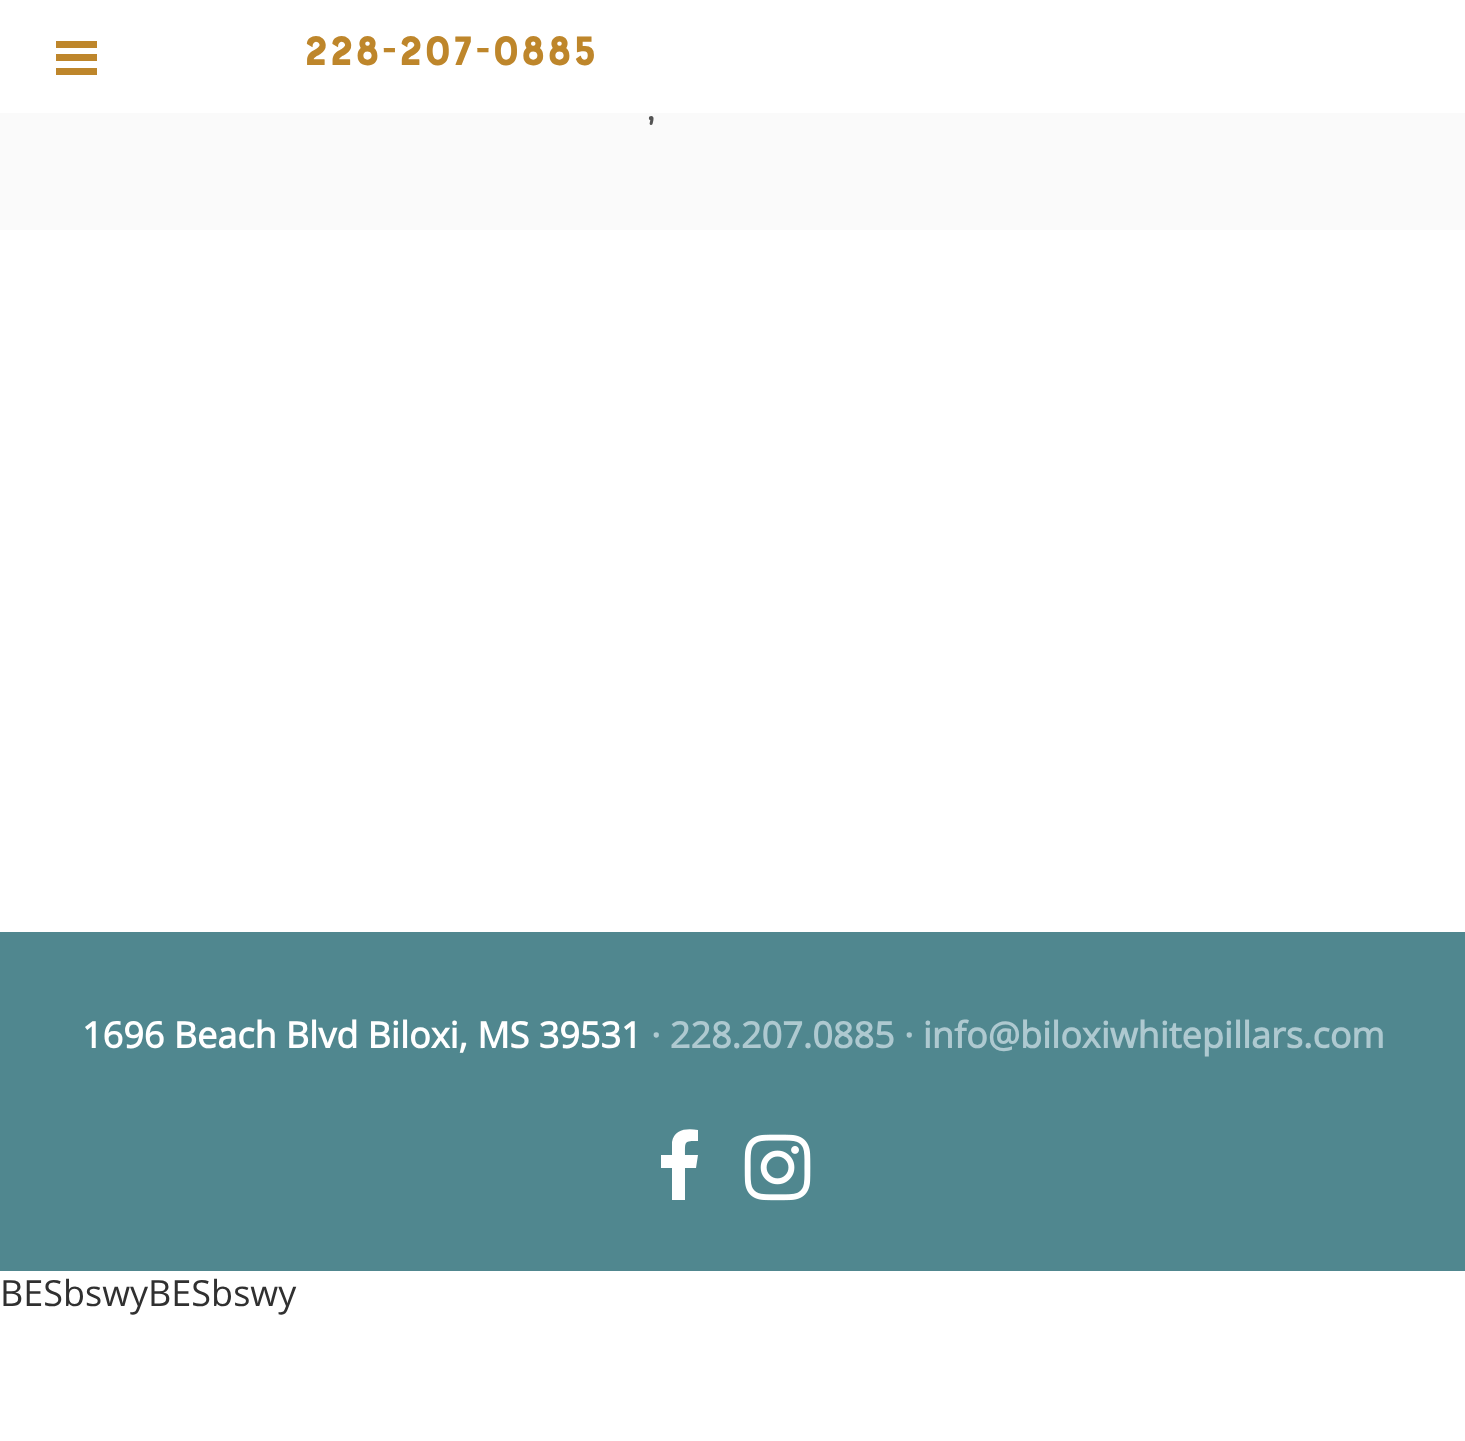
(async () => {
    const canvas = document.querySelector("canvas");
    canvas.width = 1465;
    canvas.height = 1441;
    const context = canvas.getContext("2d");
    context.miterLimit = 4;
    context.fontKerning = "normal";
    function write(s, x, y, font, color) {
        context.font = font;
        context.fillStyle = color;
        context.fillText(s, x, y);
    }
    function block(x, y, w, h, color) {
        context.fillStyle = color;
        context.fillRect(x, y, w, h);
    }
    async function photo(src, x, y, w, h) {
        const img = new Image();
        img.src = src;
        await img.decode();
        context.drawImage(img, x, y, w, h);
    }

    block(0, 0, 1465, 1441, "rgb(255, 255, 255)");
    block(56, 41, 41, 7, "rgb(190, 134, 43)");
    block(56, 54, 41, 7, "rgb(190, 134, 43)");
    block(56, 68, 41, 7, "rgb(190, 134, 43)");
    write("228-207-0885", 303, 65, "43.25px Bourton", "rgb(190, 134, 43)");
    block(0, 113, 1465, 117, "rgb(250, 250, 250)");
    write(",", 645, 122, "bold 40px Bourton", "rgb(84, 84, 84)");
    block(0, 932, 1465, 339, "rgb(80, 135, 143)");
    write("1696 Beach Blvd Biloxi, MS 39531", 82, 1048, "bold 36px Open Sans", "rgb(255, 255, 255)");
    write("· 228.207.0885 · info@biloxiwhitepillars.com", 651, 1048, "bold 36px Open Sans", "rgb(174, 201, 208)");
    context.fillStyle = "rgb(255, 255, 255)";
    context.beginPath();
    context.moveTo(698, 1130);
    context.lineTo(698, 1141);
    context.bezierCurveTo(684, 1141, 685, 1141, 685, 1155);
    context.lineTo(698, 1155);
    context.lineTo(696, 1168);
    context.lineTo(685, 1168);
    context.lineTo(685, 1200);
    context.lineTo(672, 1200);
    context.lineTo(672, 1168);
    context.lineTo(661, 1168);
    context.lineTo(661, 1155);
    context.lineTo(672, 1155);
    context.lineTo(672, 1142);
    context.bezierCurveTo(674, 1129, 687, 1128, 698, 1130);
    context.closePath();
    context.fill();
    await photo("media/1.png", 744, 1134, 67, 67);
    write("BESbswyBESbswy", 0, 1306, "36px Open Sans", "rgb(48, 48, 48)");
})();
